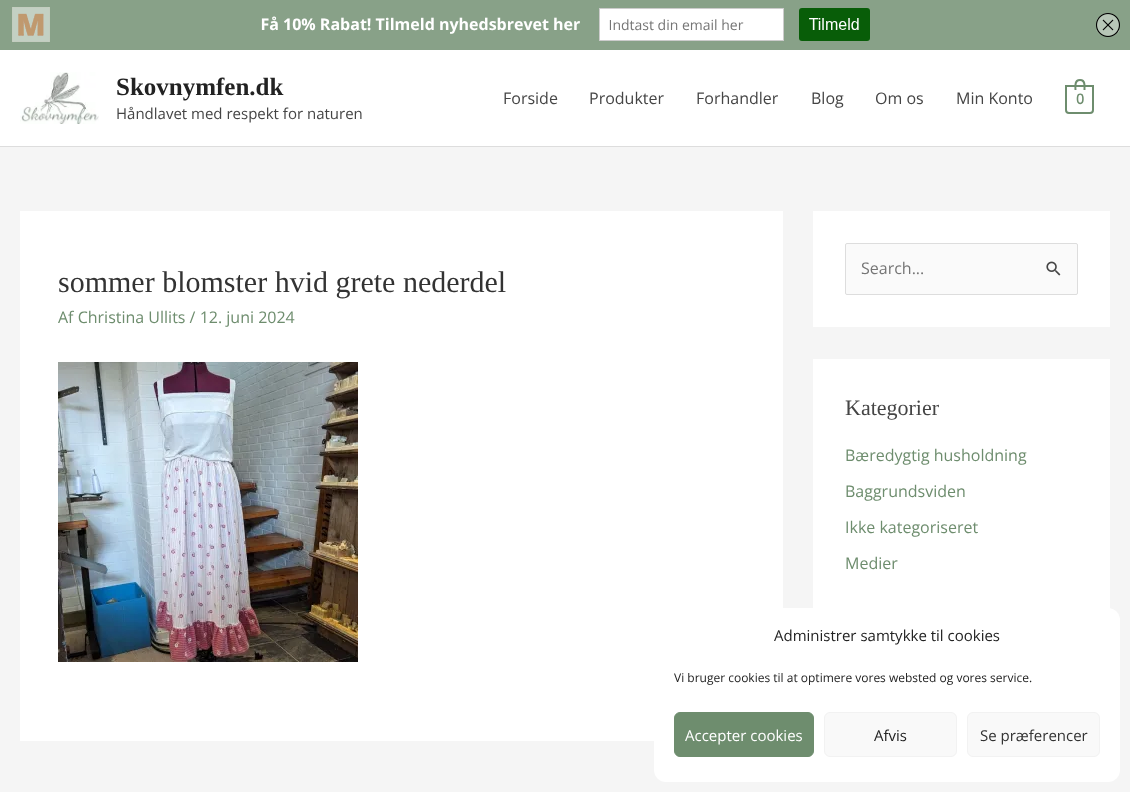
(async () => {
    const canvas = document.querySelector("canvas");
    canvas.width = 1130;
    canvas.height = 792;
    const context = canvas.getContext("2d");
    context.miterLimit = 4;
    context.fontKerning = "normal";
    function write(s, x, y, font, color) {
        context.font = font;
        context.fillStyle = color;
        context.fillText(s, x, y);
    }
    function block(x, y, w, h, color) {
        context.fillStyle = color;
        context.fillRect(x, y, w, h);
    }
    function card(x, y, w, h, r, color) {
        context.fillStyle = color;
        context.beginPath();
        context.roundRect(x, y, w, h, r);
        context.fill();
    }
    async function photo(src, x, y, w, h) {
        const img = new Image();
        img.src = src;
        await img.decode();
        context.drawImage(img, x, y, w, h);
    }

    block(0, 0, 1130, 792, "rgb(245, 245, 245)");
    await photo("media/1.png", 0, 0, 1130, 50);
    block(0, 50, 1130, 96, "rgb(255, 255, 255)");
    block(0, 146, 1130, 1, "rgb(221, 221, 221)");
    await photo("media/2.png", 20, 72, 79, 52);
    write("Skovnymfen.dk", 116, 95, "bold 25px Liberation Serif", "rgb(34, 34, 34)");
    write("Håndlavet med respekt for naturen", 116, 119, "15px Open Sans", "rgb(69, 69, 69)");
    write("Forside", 503, 104, "16px Open Sans", "rgb(69, 69, 69)");
    write("Produkter", 589, 104, "16px Open Sans", "rgb(69, 69, 69)");
    write("Forhandler", 696, 104, "16px Open Sans", "rgb(69, 69, 69)");
    write("Blog", 811, 104, "16px Open Sans", "rgb(69, 69, 69)");
    write("Om os", 875, 104, "16px Open Sans", "rgb(69, 69, 69)");
    write("Min Konto", 956, 104, "16px Open Sans", "rgb(69, 69, 69)");
    context.beginPath();
    context.roundRect(1066, 86, 27, 27, [0, 0, 3, 3]);
    context.strokeStyle = "rgb(110, 141, 110)";
    context.lineWidth = 2;
    context.stroke();
    context.fillStyle = "rgb(110, 141, 110)";
    context.beginPath();
    context.moveTo(1080, 79);
    context.bezierCurveTo(1086.5, 79, 1085.5, 85.5, 1085.5, 90);
    context.lineTo(1074.5, 90);
    context.bezierCurveTo(1074.5, 85.5, 1073.5, 79, 1080, 79);
    context.closePath();
    context.moveTo(1080, 81);
    context.bezierCurveTo(1084.5, 81, 1083.5, 87, 1083.5, 90);
    context.lineTo(1076.5, 90);
    context.bezierCurveTo(1076.5, 87, 1075.5, 81, 1080, 81);
    context.closePath();
    context.fill("evenodd");
    write("0", 1076, 104, "bold 14px Open Sans", "rgb(110, 141, 110)");
    block(20, 211, 763, 530, "rgb(255, 255, 255)");
    write("sommer blomster hvid grete nederdel", 58, 292, "30px Liberation Serif", "rgb(51, 51, 51)");
    write("Af Christina Ullits / 12. juni 2024", 58, 323, "16px Open Sans", "rgb(110, 141, 110)");
    await photo("media/3.png", 58, 362, 300, 300);
    block(813, 211, 297, 116, "rgb(255, 255, 255)");
    context.fillStyle = "rgb(250, 250, 250)";
    context.beginPath();
    context.roundRect(845.5, 243.5, 232, 51, 1.5);
    context.fill();
    context.strokeStyle = "rgb(221, 221, 221)";
    context.lineWidth = 1;
    context.stroke();
    write("Search...", 861, 274, "16px Open Sans", "rgb(117, 117, 117)");
    await photo("media/4.png", 1046, 261, 15, 15);
    block(813, 359, 297, 250, "rgb(255, 255, 255)");
    write("Kategorier", 845, 415, "22px Liberation Serif", "rgb(69, 69, 69)");
    write("Bæredygtig husholdning", 845, 461, "16px Open Sans", "rgb(110, 141, 110)");
    write("Baggrundsviden", 845, 497, "16px Open Sans", "rgb(110, 141, 110)");
    write("Ikke kategoriseret", 845, 533, "16px Open Sans", "rgb(110, 141, 110)");
    write("Medier", 845, 569, "16px Open Sans", "rgb(110, 141, 110)");
    card(654, 608, 466, 174, 12, "rgb(255, 255, 255)");
    write("Administrer samtykke til cookies", 774, 641, "15px Open Sans", "rgb(34, 34, 34)");
    write("Vi bruger cookies til at optimere vores websted og vores service.", 674, 682, "12px Open Sans", "rgb(34, 34, 34)");
    context.fillStyle = "rgb(110, 141, 110)";
    context.beginPath();
    context.roundRect(674.5, 712.5, 139, 44, 5.5);
    context.fill();
    context.strokeStyle = "rgb(110, 141, 110)";
    context.stroke();
    write("Accepter cookies", 685, 741, "15px Open Sans", "rgb(255, 255, 255)");
    context.fillStyle = "rgb(249, 249, 249)";
    context.beginPath();
    context.roundRect(824.5, 712.5, 132, 44, 5.5);
    context.fill();
    context.strokeStyle = "rgb(242, 242, 242)";
    context.stroke();
    write("Afvis", 874, 741, "15px Open Sans", "rgb(34, 34, 34)");
    context.fillStyle = "rgb(249, 249, 249)";
    context.beginPath();
    context.roundRect(967.5, 712.5, 132, 44, 5.5);
    context.fill();
    context.stroke();
    write("Se præferencer", 980, 741, "15px Open Sans", "rgb(51, 51, 51)");
})();
